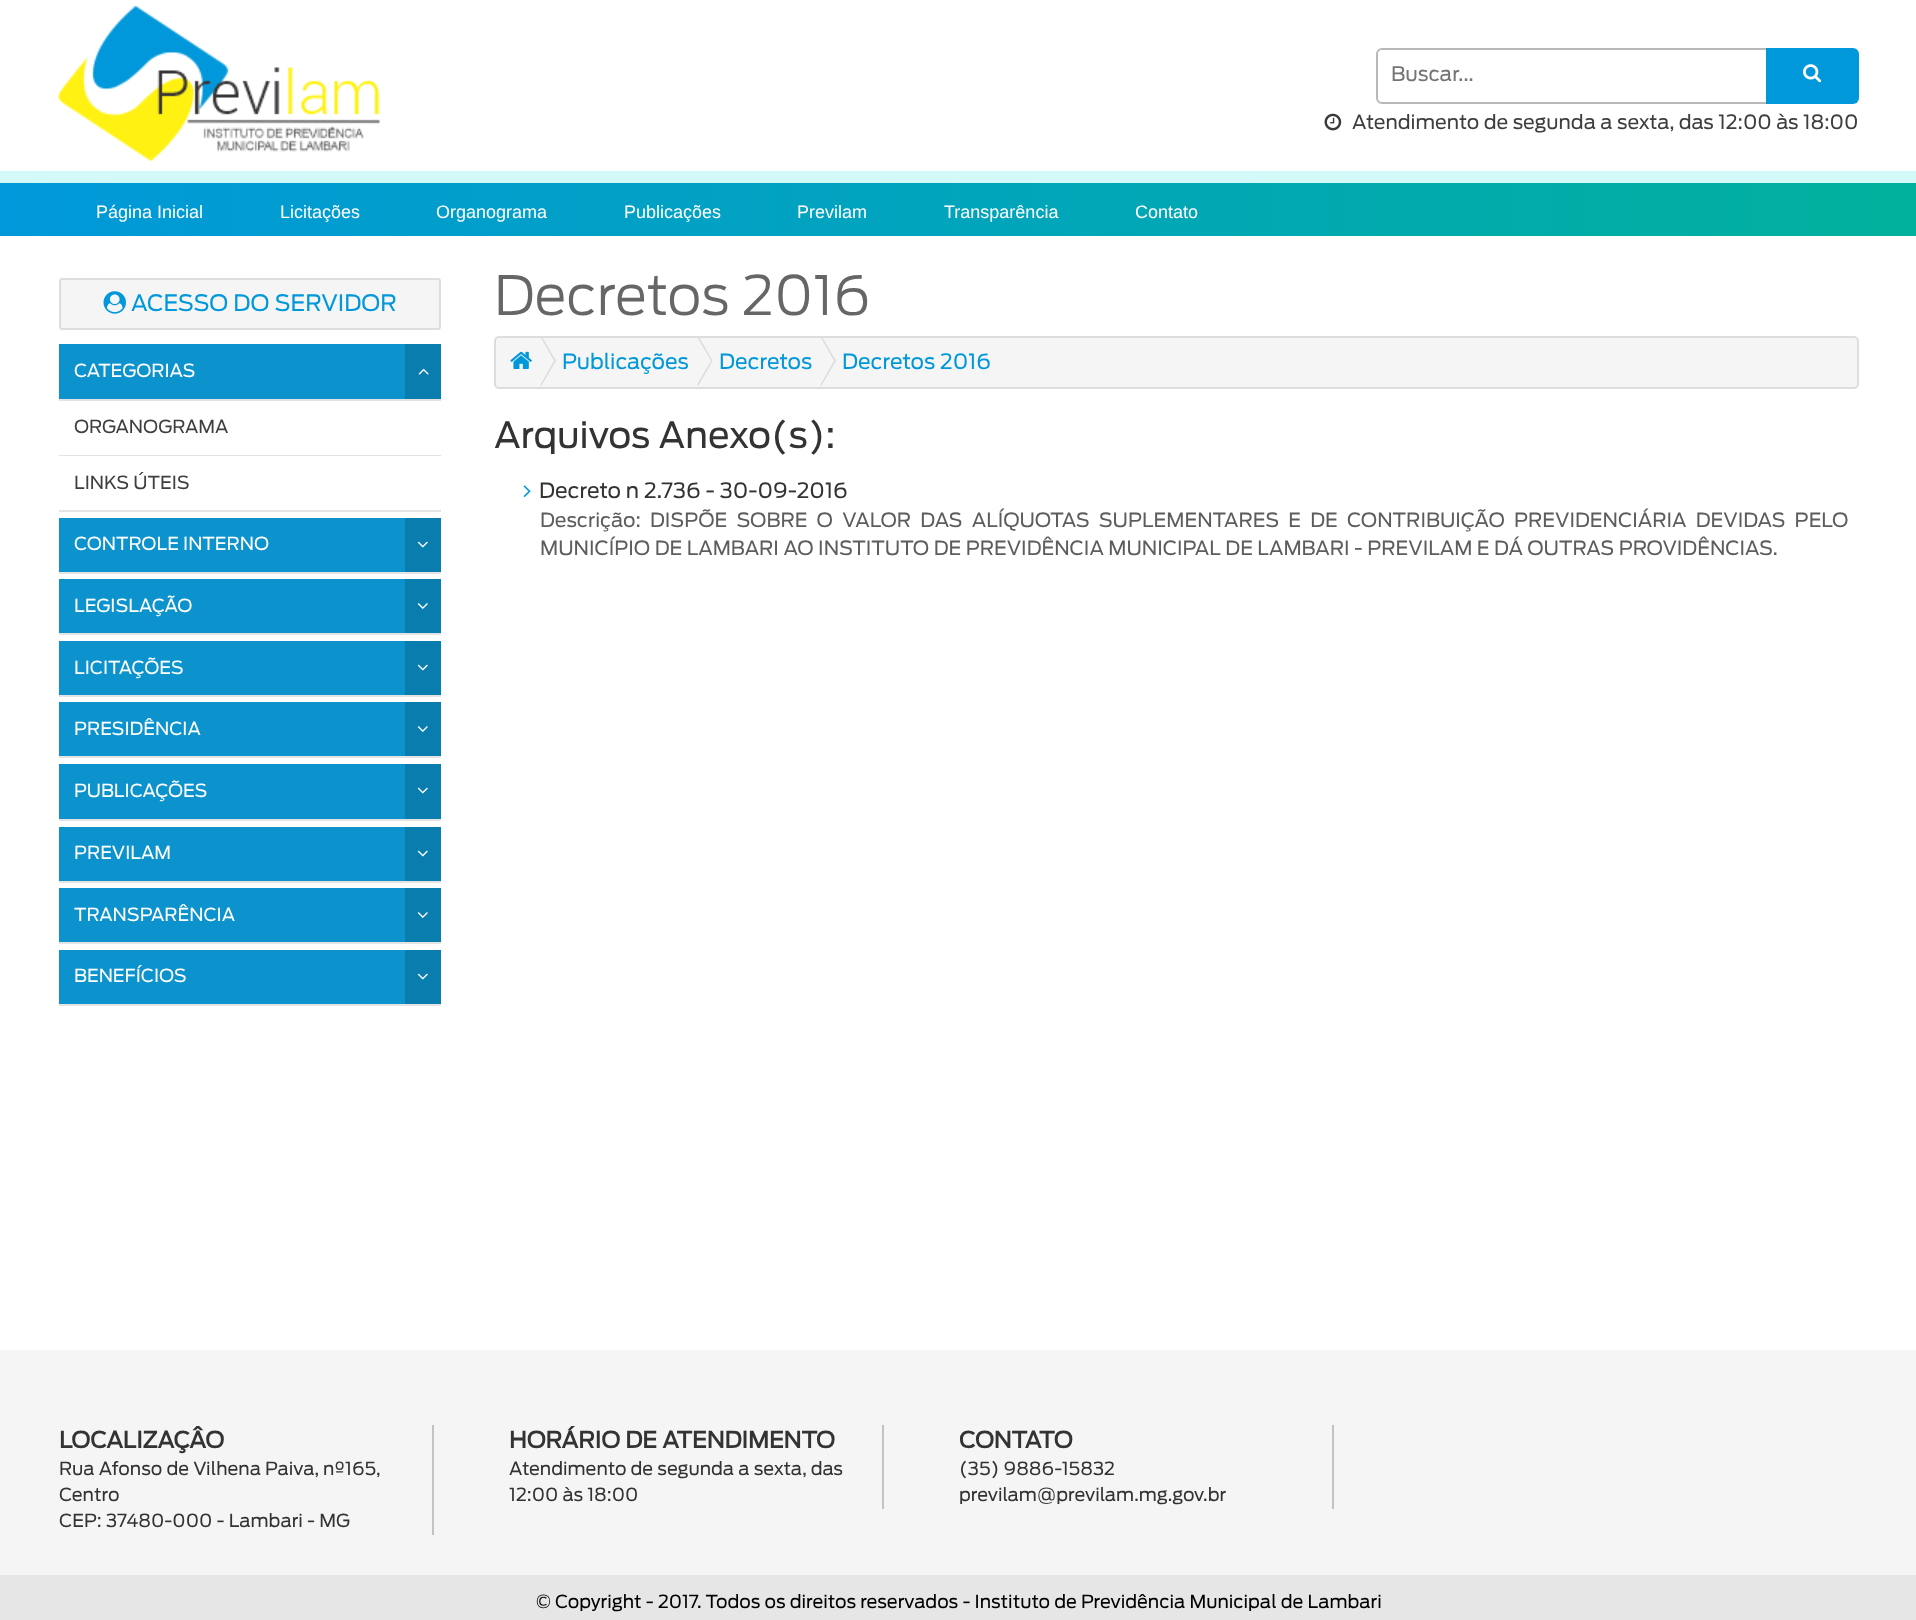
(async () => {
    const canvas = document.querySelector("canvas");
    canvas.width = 1916;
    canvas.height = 1620;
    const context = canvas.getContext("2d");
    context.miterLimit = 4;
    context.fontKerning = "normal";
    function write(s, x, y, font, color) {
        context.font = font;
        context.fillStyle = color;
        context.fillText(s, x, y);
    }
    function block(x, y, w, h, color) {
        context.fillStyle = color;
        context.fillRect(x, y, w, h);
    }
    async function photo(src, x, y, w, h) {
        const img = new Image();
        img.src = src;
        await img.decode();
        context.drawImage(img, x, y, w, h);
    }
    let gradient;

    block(0, 0, 1916, 1620, "rgb(255, 255, 255)");
    block(0, 171, 1916, 12, "rgb(212, 249, 249)");
    await photo("media/1.png", 58, 6, 322, 156);
    context.beginPath();
    context.roundRect(1377, 49, 433, 54, 5);
    context.strokeStyle = "rgb(185, 185, 185)";
    context.lineWidth = 2;
    context.stroke();
    write("Buscar...", 1391, 81, "20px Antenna", "rgb(117, 117, 117)");
    context.fillStyle = "rgb(0, 152, 218)";
    context.beginPath();
    context.roundRect(1766, 48, 93, 56, [0, 6, 6, 0]);
    context.fill();
    await photo("media/2.png", 1803, 64, 19, 19);
    await photo("media/3.png", 1324, 113, 18, 18);
    write("Atendimento de segunda a sexta, das 12:00 às 18:00", 1352, 129, "19.5px Antenna", "rgb(62, 62, 62)");
    gradient = context.createLinearGradient(0, 113, 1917, 112);
    gradient.addColorStop(0, "rgb(0, 152, 218)");
    gradient.addColorStop(1, "rgb(2, 177, 157)");
    context.fillStyle = gradient;
    context.fillRect(0, 183, 1916, 53);
    write("Página Inicial", 96, 218, "18px Liberation Sans", "rgb(255, 255, 255)");
    write("Licitações", 280, 218, "18px Liberation Sans", "rgb(255, 255, 255)");
    write("Organograma", 436, 218, "18px Liberation Sans", "rgb(255, 255, 255)");
    write("Publicações", 624, 218, "18px Liberation Sans", "rgb(255, 255, 255)");
    write("Previlam", 797, 218, "18px Liberation Sans", "rgb(255, 255, 255)");
    write("Transparência", 944, 218, "18px Liberation Sans", "rgb(255, 255, 255)");
    write("Contato", 1135, 218, "18px Liberation Sans", "rgb(255, 255, 255)");
    context.fillStyle = "rgb(245, 245, 245)";
    context.beginPath();
    context.roundRect(60, 279, 380, 50, 2);
    context.fill();
    context.strokeStyle = "rgb(221, 221, 221)";
    context.stroke();
    await photo("media/4.png", 103, 291, 23, 23);
    write("ACESSO DO SERVIDOR", 131, 311, "22.5px Antenna", "rgb(0, 152, 218)");
    block(59, 344, 346, 55, "rgb(12, 147, 206)");
    block(59, 399, 382, 2, "rgb(227, 227, 227)");
    write("CATEGORIAS", 74, 377, "18px Antenna", "rgb(255, 255, 255)");
    block(405, 344, 36, 55, "rgb(10, 125, 175)");
    await photo("media/5.png", 418, 368, 11, 7);
    block(59, 455, 382, 1, "rgb(227, 227, 227)");
    write("ORGANOGRAMA", 74, 433, "18px Antenna", "rgb(62, 62, 62)");
    block(59, 510, 382, 2, "rgb(227, 227, 227)");
    write("LINKS ÚTEIS", 74, 489, "18px Antenna", "rgb(62, 62, 62)");
    block(59, 518, 346, 54, "rgb(12, 147, 206)");
    block(59, 572, 382, 2, "rgb(227, 227, 227)");
    write("CONTROLE INTERNO", 74, 550, "18px Antenna", "rgb(255, 255, 255)");
    block(405, 518, 36, 54, "rgb(10, 125, 175)");
    await photo("media/6.png", 417, 541, 11, 7);
    block(59, 579, 346, 54, "rgb(12, 147, 206)");
    block(59, 633, 382, 2, "rgb(227, 227, 227)");
    write("LEGISLAÇÃO", 74, 612, "18px Antenna", "rgb(255, 255, 255)");
    block(405, 579, 36, 54, "rgb(10, 125, 175)");
    await photo("media/7.png", 417, 603, 11, 6);
    block(59, 641, 346, 54, "rgb(12, 147, 206)");
    block(59, 695, 382, 2, "rgb(227, 227, 227)");
    write("LICITAÇÕES", 74, 674, "18px Antenna", "rgb(255, 255, 255)");
    block(405, 641, 36, 54, "rgb(10, 125, 175)");
    await photo("media/6.png", 417, 664, 11, 7);
    block(59, 702, 346, 54, "rgb(12, 147, 206)");
    block(59, 756, 382, 2, "rgb(227, 227, 227)");
    write("PRESIDÊNCIA", 74, 735, "18px Antenna", "rgb(255, 255, 255)");
    block(405, 702, 36, 54, "rgb(10, 125, 175)");
    await photo("media/7.png", 417, 726, 11, 6);
    block(59, 764, 346, 55, "rgb(12, 147, 206)");
    block(59, 819, 382, 2, "rgb(227, 227, 227)");
    write("PUBLICAÇÕES", 74, 797, "18px Antenna", "rgb(255, 255, 255)");
    block(405, 764, 36, 55, "rgb(10, 125, 175)");
    await photo("media/6.png", 417, 787, 11, 7);
    block(59, 827, 346, 54, "rgb(12, 147, 206)");
    block(59, 881, 382, 2, "rgb(227, 227, 227)");
    write("PREVILAM", 74, 859, "18px Antenna", "rgb(255, 255, 255)");
    block(405, 827, 36, 54, "rgb(10, 125, 175)");
    await photo("media/6.png", 417, 850, 11, 7);
    block(59, 888, 346, 54, "rgb(12, 147, 206)");
    block(59, 942, 382, 2, "rgb(227, 227, 227)");
    write("TRANSPARÊNCIA", 74, 921, "18px Antenna", "rgb(255, 255, 255)");
    block(405, 888, 36, 54, "rgb(10, 125, 175)");
    await photo("media/7.png", 417, 912, 11, 6);
    block(59, 950, 346, 54, "rgb(12, 147, 206)");
    block(59, 1004, 382, 2, "rgb(227, 227, 227)");
    write("BENEFÍCIOS", 74, 982, "18px Antenna", "rgb(255, 255, 255)");
    block(405, 950, 36, 54, "rgb(10, 125, 175)");
    await photo("media/6.png", 417, 973, 11, 7);
    write("Decretos 2016", 494, 315, "300 54px Antenna", "rgb(102, 102, 102)");
    context.fillStyle = "rgb(245, 245, 245)";
    context.beginPath();
    context.roundRect(495, 337, 1363, 51, 4);
    context.fill();
    context.stroke();
    await photo("media/8.png", 510, 351, 22, 18);
    context.fillStyle = "rgb(221, 221, 221)";
    context.beginPath();
    context.moveTo(540.5, 337);
    context.lineTo(541.5, 336);
    context.lineTo(556, 360.5);
    context.lineTo(554.5, 361.5);
    context.closePath();
    context.fill();
    context.beginPath();
    context.moveTo(554.5, 360);
    context.lineTo(556, 361);
    context.lineTo(541.5, 385.5);
    context.lineTo(540.5, 384.5);
    context.closePath();
    context.fill();
    write("Publicações", 562, 369, "21px Antenna", "rgb(0, 152, 218)");
    context.fillStyle = "rgb(221, 221, 221)";
    context.beginPath();
    context.moveTo(697, 337);
    context.lineTo(698.5, 336);
    context.lineTo(712.5, 360.5);
    context.lineTo(711.5, 361.5);
    context.closePath();
    context.fill();
    context.beginPath();
    context.moveTo(711.5, 360);
    context.lineTo(712.5, 361);
    context.lineTo(698.5, 385.5);
    context.lineTo(697, 384.5);
    context.closePath();
    context.fill();
    write("Decretos", 719, 369, "21px Antenna", "rgb(0, 152, 218)");
    context.fillStyle = "rgb(221, 221, 221)";
    context.beginPath();
    context.moveTo(820.5, 337);
    context.lineTo(821.5, 336);
    context.lineTo(836, 360.5);
    context.lineTo(834.5, 361.5);
    context.closePath();
    context.fill();
    context.beginPath();
    context.moveTo(834.5, 360);
    context.lineTo(836, 361);
    context.lineTo(821.5, 385.5);
    context.lineTo(820.5, 384.5);
    context.closePath();
    context.fill();
    write("Decretos 2016", 842, 369, "21px Antenna", "rgb(0, 152, 218)");
    write("Arquivos Anexo(s):", 494, 448, "36px Antenna", "rgb(51, 51, 51)");
    await photo("media/9.png", 523, 485, 8, 12);
    write("Decreto n 2.736 - 30-09-2016", 539, 498, "21px Antenna", "rgb(51, 51, 51)");
    context.wordSpacing = "4.75px";
    write("Descrição: DISPÕE SOBRE O VALOR DAS ALÍQUOTAS SUPLEMENTARES E DE CONTRIBUIÇÃO PREVIDENCIÁRIA DEVIDAS PELO", 540, 527, "19.5px Antenna", "rgb(93, 93, 93)");
    context.wordSpacing = "0px";
    write("MUNICÍPIO DE LAMBARI AO INSTITUTO DE PREVIDÊNCIA MUNICIPAL DE LAMBARI - PREVILAM E DÁ OUTRAS PROVIDÊNCIAS.", 540, 555, "19.5px Antenna", "rgb(93, 93, 93)");
    block(0, 1350, 1916, 225, "rgb(245, 245, 245)");
    block(432, 1425, 2, 110, "rgb(195, 195, 195)");
    write("LOCALIZAÇÂO", 59, 1448, "bold 22.5px Antenna", "rgb(51, 51, 51)");
    write("Rua Afonso de Vilhena Paiva, nº165,", 59, 1475, "18px Antenna", "rgb(51, 51, 51)");
    write("Centro", 59, 1501, "18px Antenna", "rgb(51, 51, 51)");
    write("CEP: 37480-000 - Lambari - MG", 59, 1527, "18px Antenna", "rgb(51, 51, 51)");
    block(882, 1425, 2, 84, "rgb(195, 195, 195)");
    write("HORÁRIO DE ATENDIMENTO", 509, 1448, "bold 22.5px Antenna", "rgb(51, 51, 51)");
    write("Atendimento de segunda a sexta, das", 509, 1475, "18px Antenna", "rgb(51, 51, 51)");
    write("12:00 às 18:00", 509, 1501, "18px Antenna", "rgb(51, 51, 51)");
    block(1332, 1425, 2, 84, "rgb(195, 195, 195)");
    write("CONTATO", 959, 1448, "bold 22.5px Antenna", "rgb(51, 51, 51)");
    write("(35) 9886-15832", 959, 1475, "18px Antenna", "rgb(51, 51, 51)");
    write("previlam@previlam.mg.gov.br", 959, 1501, "18px Antenna", "rgb(51, 51, 51)");
    block(0, 1575, 1916, 45, "rgb(230, 230, 230)");
    write("© Copyright - 2017. Todos os direitos reservados - Instituto de Previdência Municipal de Lambari", 536, 1608, "18px Antenna", "rgb(0, 0, 0)");
})();
